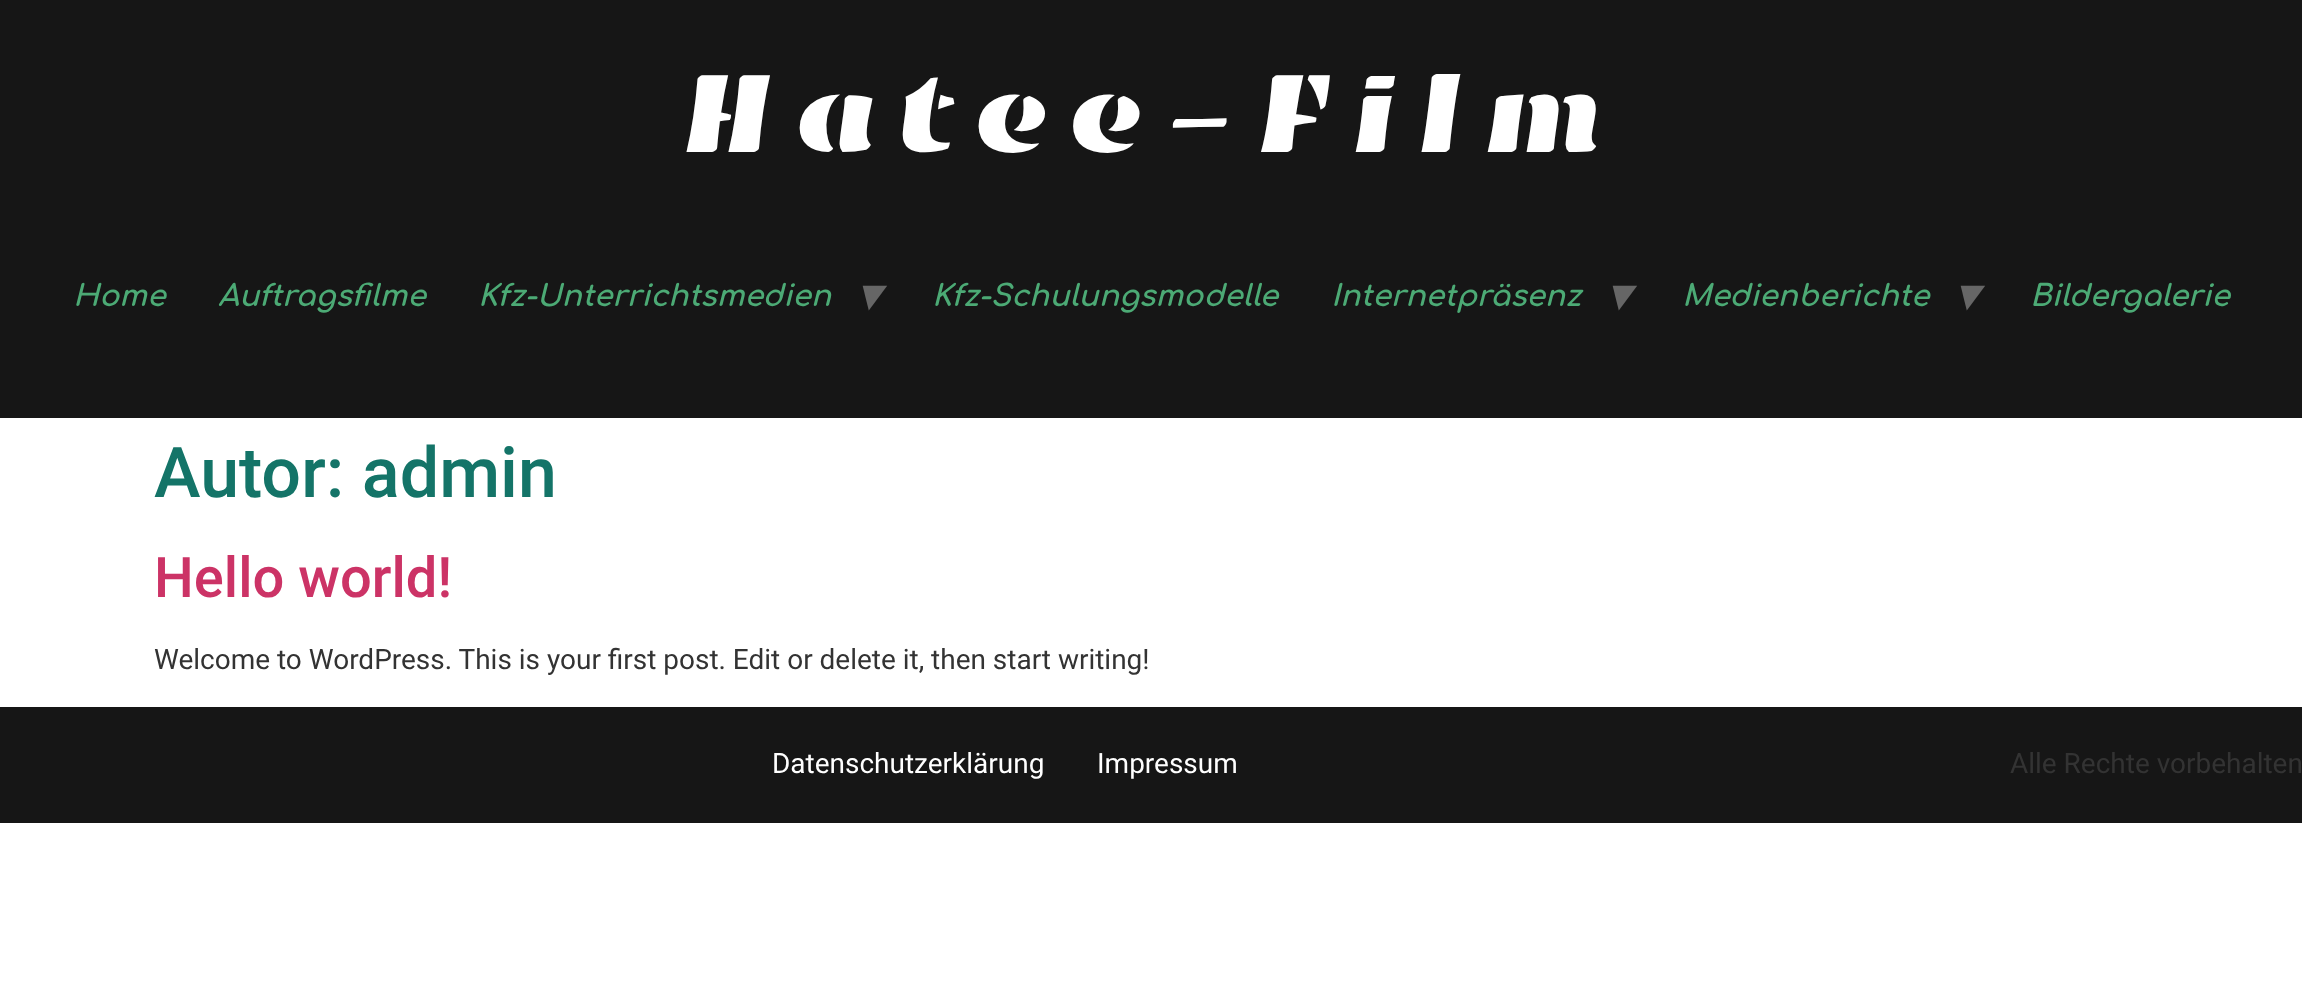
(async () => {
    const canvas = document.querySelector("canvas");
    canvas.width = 2302;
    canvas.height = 982;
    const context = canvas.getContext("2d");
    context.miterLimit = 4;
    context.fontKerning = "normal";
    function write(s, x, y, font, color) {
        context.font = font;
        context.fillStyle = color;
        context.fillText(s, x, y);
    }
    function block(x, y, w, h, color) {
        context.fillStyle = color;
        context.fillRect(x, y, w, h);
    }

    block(0, 0, 2302, 982, "rgb(255, 255, 255)");
    block(0, 0, 2302, 418, "rgb(22, 22, 22)");
    context.letterSpacing = "17.5px";
    write("Hatee-Film", 679, 152, "115.5px Emblema One", "rgb(255, 255, 255)");
    context.letterSpacing = "0px";
    write("Home", 73, 306, "italic bold 29.75px Comfortaa", "rgb(76, 170, 117)");
    write("Auftragsfilme", 218, 306, "italic bold 29.75px Comfortaa", "rgb(76, 170, 117)");
    write("Kfz-Unterrichtsmedien", 478, 306, "italic bold 29.75px Comfortaa", "rgb(76, 170, 117)");
    write("▾", 857, 310, "italic bold 45px DejaVu Sans", "rgb(102, 102, 102)");
    write("Kfz-Schulungsmodelle", 932, 306, "italic bold 29.75px Comfortaa", "rgb(76, 170, 117)");
    write("Internetpräsenz", 1331, 306, "italic bold 29.75px Comfortaa", "rgb(76, 170, 117)");
    write("▾", 1607, 310, "italic bold 45px DejaVu Sans", "rgb(102, 102, 102)");
    write("Medienberichte", 1682, 306, "italic bold 29.75px Comfortaa", "rgb(76, 170, 117)");
    write("▾", 1955, 310, "italic bold 45px DejaVu Sans", "rgb(102, 102, 102)");
    write("Bildergalerie", 2030, 306, "italic bold 29.75px Comfortaa", "rgb(76, 170, 117)");
    write("Autor: admin", 154, 497, "500 70px Roboto", "rgb(20, 116, 104)");
    write("Hello world!", 154, 597, "500 56px Roboto", "rgb(204, 51, 102)");
    write("Welcome to WordPress. This is your first post. Edit or delete it, then start writing!", 154, 669, "28px Roboto", "rgb(51, 51, 51)");
    block(0, 707, 2302, 116, "rgb(22, 22, 22)");
    write("Datenschutzerklärung", 772, 773, "28px Roboto", "rgb(255, 255, 255)");
    write("Impressum", 1097, 773, "28px Roboto", "rgb(255, 255, 255)");
    write("Alle Rechte vorbehalten", 2010, 773, "28px Roboto", "rgb(51, 51, 51)");
})();
